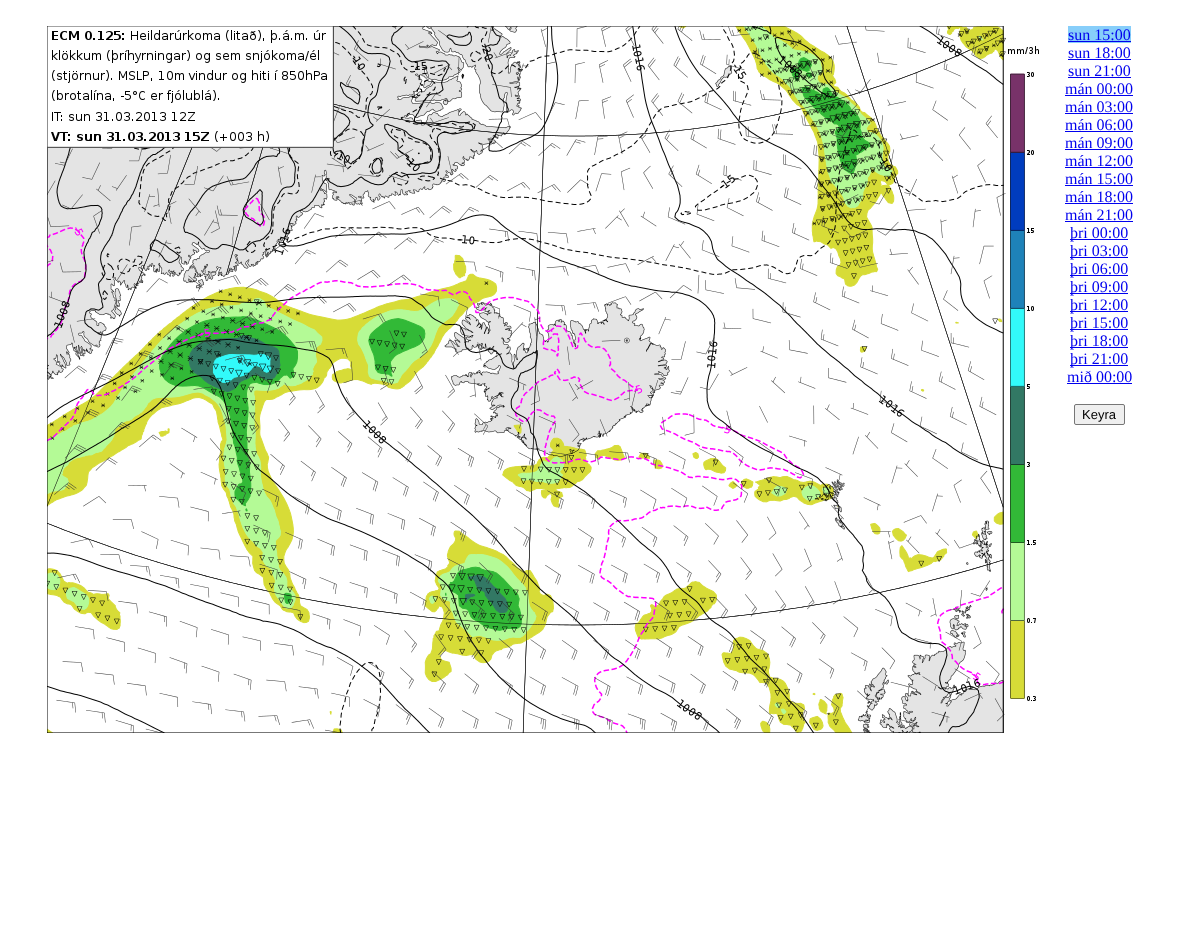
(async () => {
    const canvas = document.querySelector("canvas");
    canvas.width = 1194;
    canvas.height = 931;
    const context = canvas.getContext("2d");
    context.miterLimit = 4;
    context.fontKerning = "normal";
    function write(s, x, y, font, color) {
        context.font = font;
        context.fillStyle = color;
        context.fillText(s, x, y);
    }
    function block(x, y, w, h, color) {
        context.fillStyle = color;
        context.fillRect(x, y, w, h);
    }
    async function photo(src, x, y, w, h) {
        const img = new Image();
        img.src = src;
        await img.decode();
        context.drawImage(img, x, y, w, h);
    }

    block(0, 0, 1194, 931, "rgb(255, 255, 255)");
    await photo("media/1.png", 47, 26, 992, 707);
    block(1068, 26, 63, 17, "rgb(135, 206, 250)");
    write("sun 15:00", 1068, 40, "16px Liberation Serif", "rgb(0, 0, 238)");
    block(1068, 41, 63, 1, "rgb(0, 0, 238)");
    write("sun 18:00", 1068, 58, "16px Liberation Serif", "rgb(0, 0, 238)");
    block(1068, 59, 63, 1, "rgb(0, 0, 238)");
    write("sun 21:00", 1068, 76, "16px Liberation Serif", "rgb(0, 0, 238)");
    block(1068, 77, 63, 1, "rgb(0, 0, 238)");
    write("mán 00:00", 1065, 94, "16px Liberation Serif", "rgb(0, 0, 238)");
    block(1065, 95, 68, 1, "rgb(0, 0, 238)");
    write("mán 03:00", 1065, 112, "16px Liberation Serif", "rgb(0, 0, 238)");
    block(1065, 113, 68, 1, "rgb(0, 0, 238)");
    write("mán 06:00", 1065, 130, "16px Liberation Serif", "rgb(0, 0, 238)");
    block(1065, 131, 68, 1, "rgb(0, 0, 238)");
    write("mán 09:00", 1065, 148, "16px Liberation Serif", "rgb(0, 0, 238)");
    block(1065, 149, 68, 1, "rgb(0, 0, 238)");
    write("mán 12:00", 1065, 166, "16px Liberation Serif", "rgb(0, 0, 238)");
    block(1065, 167, 68, 1, "rgb(0, 0, 238)");
    write("mán 15:00", 1065, 184, "16px Liberation Serif", "rgb(0, 0, 238)");
    block(1065, 185, 68, 1, "rgb(0, 0, 238)");
    write("mán 18:00", 1065, 202, "16px Liberation Serif", "rgb(0, 0, 238)");
    block(1065, 203, 68, 1, "rgb(0, 0, 238)");
    write("mán 21:00", 1065, 220, "16px Liberation Serif", "rgb(0, 0, 238)");
    block(1065, 221, 68, 1, "rgb(0, 0, 238)");
    block(1070, 239, 58, 1, "rgb(0, 0, 238)");
    write("þri 00:00", 1070, 238, "16px Liberation Serif", "rgb(0, 0, 238)");
    block(1070, 257, 58, 1, "rgb(0, 0, 238)");
    write("þri 03:00", 1070, 256, "16px Liberation Serif", "rgb(0, 0, 238)");
    block(1070, 275, 58, 1, "rgb(0, 0, 238)");
    write("þri 06:00", 1070, 274, "16px Liberation Serif", "rgb(0, 0, 238)");
    block(1070, 293, 58, 1, "rgb(0, 0, 238)");
    write("þri 09:00", 1070, 292, "16px Liberation Serif", "rgb(0, 0, 238)");
    block(1070, 311, 58, 1, "rgb(0, 0, 238)");
    write("þri 12:00", 1070, 310, "16px Liberation Serif", "rgb(0, 0, 238)");
    block(1070, 329, 58, 1, "rgb(0, 0, 238)");
    write("þri 15:00", 1070, 328, "16px Liberation Serif", "rgb(0, 0, 238)");
    block(1070, 347, 58, 1, "rgb(0, 0, 238)");
    write("þri 18:00", 1070, 346, "16px Liberation Serif", "rgb(0, 0, 238)");
    block(1070, 365, 58, 1, "rgb(0, 0, 238)");
    write("þri 21:00", 1070, 364, "16px Liberation Serif", "rgb(0, 0, 238)");
    write("mið 00:00", 1067, 382, "16px Liberation Serif", "rgb(0, 0, 238)");
    block(1067, 383, 65, 1, "rgb(0, 0, 238)");
    context.fillStyle = "rgb(239, 239, 239)";
    context.beginPath();
    context.roundRect(1074.5, 404.5, 50, 20, 1.5);
    context.fill();
    context.strokeStyle = "rgb(118, 118, 118)";
    context.stroke();
    write("Keyra", 1082, 419, "13px Liberation Sans", "rgb(0, 0, 0)");
})();
